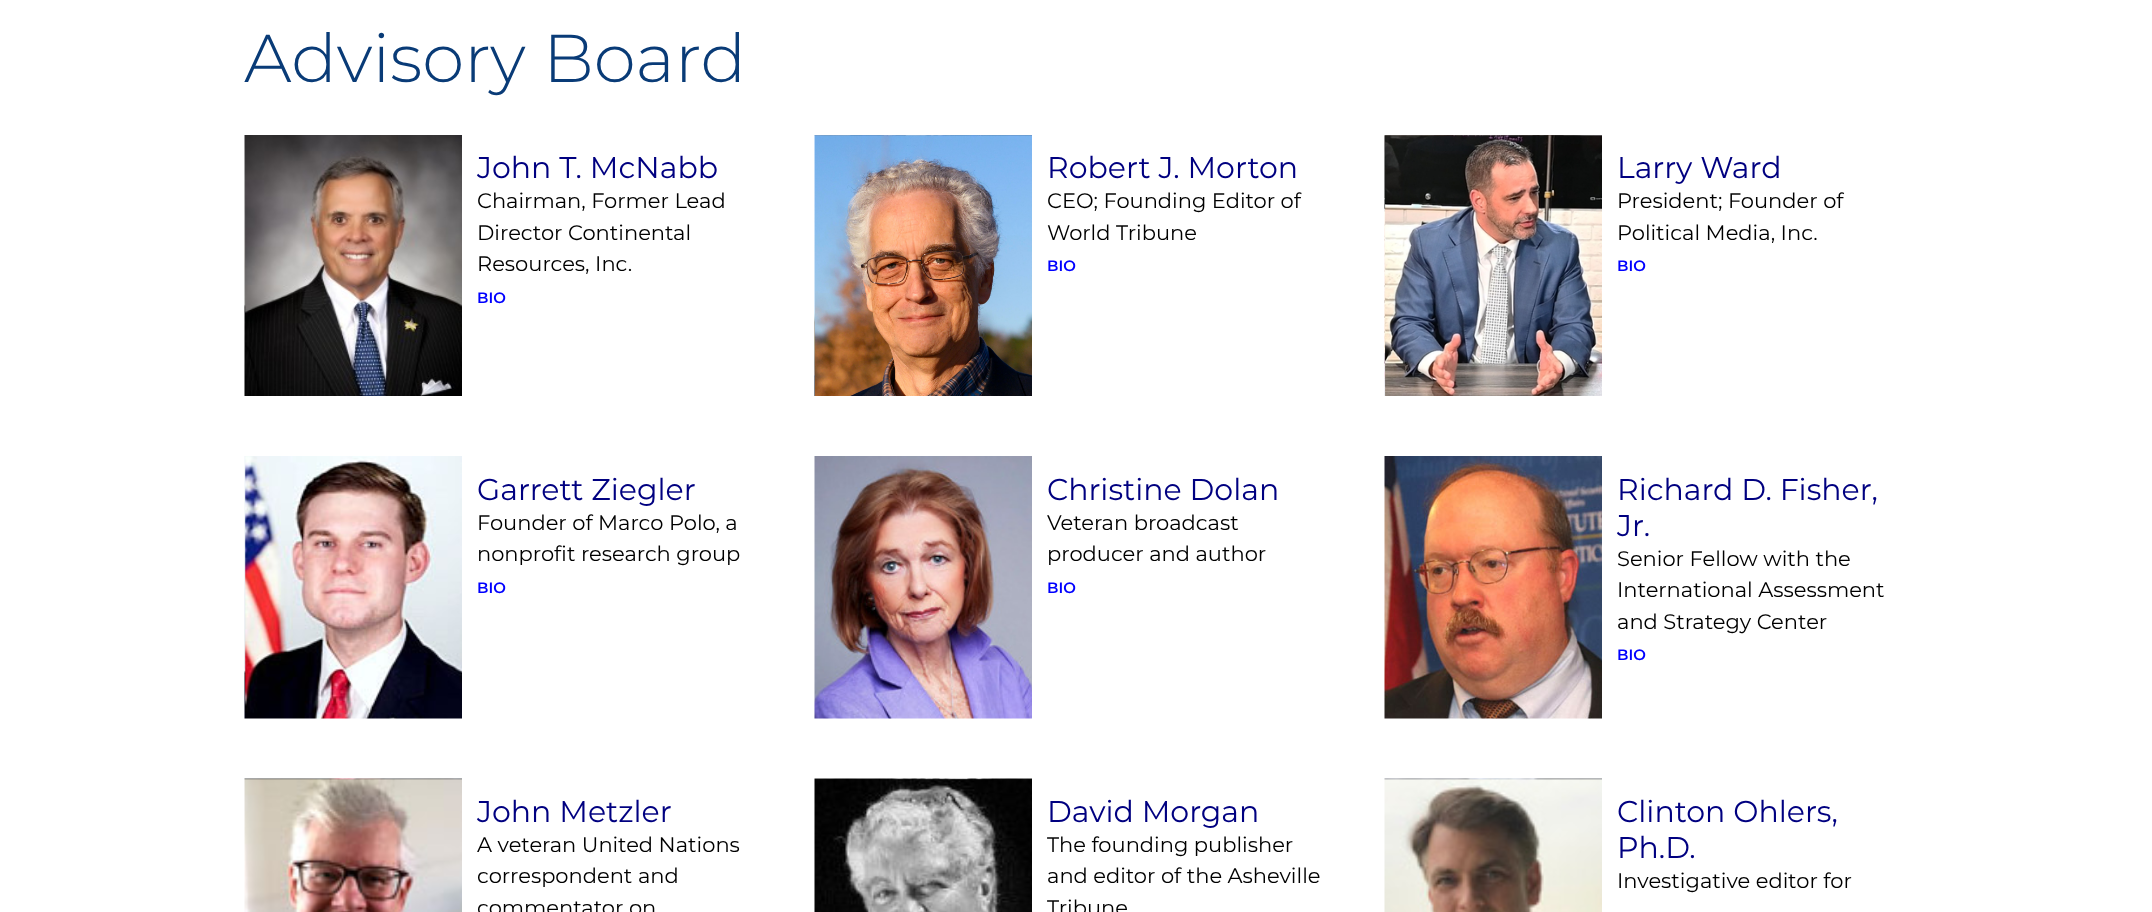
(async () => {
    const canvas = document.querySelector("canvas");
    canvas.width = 2152;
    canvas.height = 912;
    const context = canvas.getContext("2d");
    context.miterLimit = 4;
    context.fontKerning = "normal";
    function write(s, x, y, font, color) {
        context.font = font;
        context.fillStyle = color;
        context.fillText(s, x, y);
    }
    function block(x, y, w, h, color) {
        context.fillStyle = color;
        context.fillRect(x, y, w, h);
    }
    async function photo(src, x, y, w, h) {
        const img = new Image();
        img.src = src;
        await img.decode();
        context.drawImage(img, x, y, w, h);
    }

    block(0, 0, 2152, 912, "rgb(255, 255, 255)");
    write("Advisory Board", 244, 82, "300 67.5px Montserrat", "rgb(9, 59, 119)");
    await photo("media/1.png", 244, 135, 218, 261);
    write("John T. McNabb", 477, 178, "30px Montserrat", "rgb(0, 0, 128)");
    write("Chairman, Former Lead", 477, 208, "21px Montserrat", "rgb(0, 0, 0)");
    write("Director Continental", 477, 240, "21px Montserrat", "rgb(0, 0, 0)");
    write("Resources, Inc.", 477, 271, "21px Montserrat", "rgb(0, 0, 0)");
    write("BIO", 477, 303, "600 15px Montserrat", "rgb(0, 0, 255)");
    await photo("media/2.png", 814, 135, 218, 261);
    write("Robert J. Morton", 1047, 178, "30px Montserrat", "rgb(0, 0, 128)");
    write("CEO; Founding Editor of", 1047, 208, "21px Montserrat", "rgb(0, 0, 0)");
    write("World Tribune", 1047, 240, "21px Montserrat", "rgb(0, 0, 0)");
    write("BIO", 1047, 271, "600 15px Montserrat", "rgb(0, 0, 255)");
    await photo("media/3.png", 1384, 135, 218, 261);
    write("Larry Ward", 1617, 178, "30px Montserrat", "rgb(0, 0, 128)");
    write("President; Founder of", 1617, 208, "21px Montserrat", "rgb(0, 0, 0)");
    write("Political Media, Inc.", 1617, 240, "21px Montserrat", "rgb(0, 0, 0)");
    write("BIO", 1617, 271, "600 15px Montserrat", "rgb(0, 0, 255)");
    await photo("media/4.png", 244, 456, 218, 263);
    write("Garrett Ziegler", 477, 500, "30px Montserrat", "rgb(0, 0, 128)");
    write("Founder of Marco Polo, a", 477, 530, "21px Montserrat", "rgb(0, 0, 0)");
    write("nonprofit research group", 477, 561, "21px Montserrat", "rgb(0, 0, 0)");
    write("BIO", 477, 593, "600 15px Montserrat", "rgb(0, 0, 255)");
    await photo("media/5.png", 814, 456, 218, 263);
    write("Christine Dolan", 1047, 500, "30px Montserrat", "rgb(0, 0, 128)");
    write("Veteran broadcast", 1047, 530, "21px Montserrat", "rgb(0, 0, 0)");
    write("producer and author", 1047, 561, "21px Montserrat", "rgb(0, 0, 0)");
    write("BIO", 1047, 593, "600 15px Montserrat", "rgb(0, 0, 255)");
    await photo("media/6.png", 1384, 456, 218, 263);
    write("Richard D. Fisher,", 1617, 500, "30px Montserrat", "rgb(0, 0, 128)");
    write("Jr.", 1617, 536, "30px Montserrat", "rgb(0, 0, 128)");
    write("Senior Fellow with the", 1617, 566, "21px Montserrat", "rgb(0, 0, 0)");
    write("International Assessment", 1617, 597, "21px Montserrat", "rgb(0, 0, 0)");
    write("and Strategy Center", 1617, 629, "21px Montserrat", "rgb(0, 0, 0)");
    write("BIO", 1617, 660, "600 15px Montserrat", "rgb(0, 0, 255)");
    await photo("media/7.png", 244, 778, 218, 134);
    write("John Metzler", 477, 822, "30px Montserrat", "rgb(0, 0, 128)");
    write("A veteran United Nations", 477, 852, "21px Montserrat", "rgb(0, 0, 0)");
    write("correspondent and", 477, 883, "21px Montserrat", "rgb(0, 0, 0)");
    write("commentator on", 477, 915, "21px Montserrat", "rgb(0, 0, 0)");
    await photo("media/8.png", 814, 778, 218, 134);
    write("David Morgan", 1047, 822, "30px Montserrat", "rgb(0, 0, 128)");
    write("The founding publisher", 1047, 852, "21px Montserrat", "rgb(0, 0, 0)");
    write("and editor of the Asheville", 1047, 883, "21px Montserrat", "rgb(0, 0, 0)");
    write("Tribune", 1047, 915, "21px Montserrat", "rgb(0, 0, 0)");
    await photo("media/9.png", 1384, 778, 218, 134);
    write("Clinton Ohlers,", 1617, 822, "30px Montserrat", "rgb(0, 0, 128)");
    write("Ph.D.", 1617, 858, "30px Montserrat", "rgb(0, 0, 128)");
    write("Investigative editor for", 1617, 888, "21px Montserrat", "rgb(0, 0, 0)");
})();
